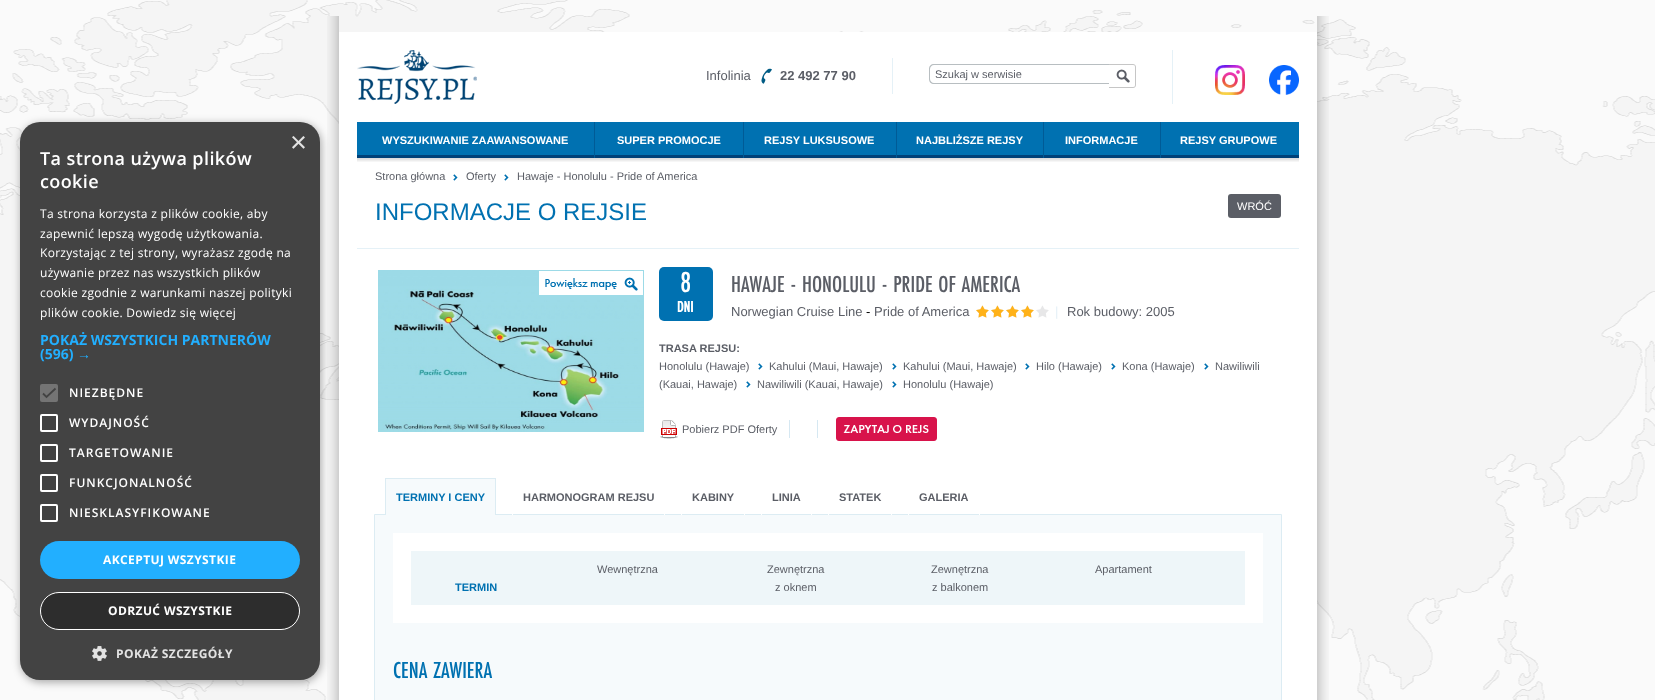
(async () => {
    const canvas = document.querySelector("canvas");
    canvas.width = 1655;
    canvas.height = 700;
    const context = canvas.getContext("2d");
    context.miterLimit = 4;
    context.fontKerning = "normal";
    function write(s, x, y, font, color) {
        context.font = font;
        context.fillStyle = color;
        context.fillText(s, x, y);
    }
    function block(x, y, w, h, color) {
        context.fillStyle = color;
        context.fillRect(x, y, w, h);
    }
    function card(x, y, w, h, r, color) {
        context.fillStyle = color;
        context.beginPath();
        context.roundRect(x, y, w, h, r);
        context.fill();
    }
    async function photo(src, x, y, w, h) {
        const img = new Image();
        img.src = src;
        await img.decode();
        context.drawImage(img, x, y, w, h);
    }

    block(0, 0, 1655, 700, "rgb(255, 255, 255)");
    await photo("media/1.png", 0, 0, 1655, 700);
    await photo("media/3.png", 327, 16, 1002, 684);
    context.fillStyle = "rgba(0, 0, 0, 0.35)";
    context.filter = "blur(4px)";
    context.beginPath();
    context.roundRect(21, 124, 300, 558, 20);
    context.fill();
    context.filter = "none";
    card(20, 122, 300, 558, 20, "rgb(67, 67, 67)");
    write("×", 290, 152, "29px Liberation Sans", "rgb(227, 227, 227)");
    context.letterSpacing = "0.4px";
    write("Ta strona używa plików", 40, 165, "600 18px Open Sans", "rgb(255, 255, 255)");
    write("cookie", 40, 188, "600 18px Open Sans", "rgb(255, 255, 255)");
    context.letterSpacing = "0.3px";
    write("Ta strona korzysta z plików cookie, aby", 40, 218, "12px Open Sans", "rgb(255, 255, 255)");
    write("zapewnić lepszą wygodę użytkowania.", 40, 238, "12px Open Sans", "rgb(255, 255, 255)");
    write("Korzystając z tej strony, wyrażasz zgodę na", 40, 257, "12px Open Sans", "rgb(255, 255, 255)");
    write("używanie przez nas wszystkich plików", 40, 277, "12px Open Sans", "rgb(255, 255, 255)");
    write("cookie zgodnie z warunkami naszej polityki", 40, 297, "12px Open Sans", "rgb(255, 255, 255)");
    write("plików cookie. Dowiedz się więcej", 40, 317, "12px Open Sans", "rgb(255, 255, 255)");
    context.letterSpacing = "0px";
    write("POKAŻ WSZYSTKICH PARTNERÓW", 40, 345, "bold 14px Open Sans", "rgb(34, 175, 255)");
    write("(596)", 40, 359, "bold 14px Open Sans", "rgb(34, 175, 255)");
    write("→", 77, 359, "bold 14px Liberation Sans", "rgb(34, 175, 255)");
    card(40, 384, 18, 18, 2, "rgb(116, 116, 116)");
    context.beginPath();
    context.moveTo(43, 393.5);
    context.lineTo(46.5, 397);
    context.lineTo(55.5, 388.5);
    context.strokeStyle = "rgb(67, 67, 67)";
    context.lineWidth = 1.8;
    context.stroke();
    context.letterSpacing = "1px";
    write("NIEZBĘDNE", 69, 397, "600 12px Open Sans", "rgb(255, 255, 255)");
    context.beginPath();
    context.roundRect(41, 415, 16, 16, 1);
    context.strokeStyle = "rgb(255, 255, 255)";
    context.lineWidth = 2;
    context.stroke();
    write("WYDAJNOŚĆ", 69, 427, "600 12px Open Sans", "rgb(255, 255, 255)");
    context.beginPath();
    context.roundRect(41, 445, 16, 16, 1);
    context.stroke();
    write("TARGETOWANIE", 69, 457, "600 12px Open Sans", "rgb(255, 255, 255)");
    context.beginPath();
    context.roundRect(41, 475, 16, 16, 1);
    context.stroke();
    write("FUNKCJONALNOŚĆ", 69, 487, "600 12px Open Sans", "rgb(255, 255, 255)");
    context.beginPath();
    context.roundRect(41, 505, 16, 16, 1);
    context.stroke();
    write("NIESKLASYFIKOWANE", 69, 517, "600 12px Open Sans", "rgb(255, 255, 255)");
    card(40, 541, 260, 38, 19, "rgb(34, 175, 255)");
    context.letterSpacing = "0.4px";
    write("AKCEPTUJ WSZYSTKIE", 103, 564, "bold 12px Open Sans", "rgb(255, 255, 255)");
    context.fillStyle = "rgb(45, 45, 45)";
    context.beginPath();
    context.roundRect(40.5, 592.5, 259, 37, 18.5);
    context.fill();
    context.lineWidth = 1;
    context.stroke();
    write("ODRZUĆ WSZYSTKIE", 108, 615, "bold 12px Open Sans", "rgb(255, 255, 255)");
    await photo("media/2.png", 92, 646, 15, 15);
    write("POKAŻ SZCZEGÓŁY", 116, 658, "bold 12px Open Sans", "rgb(227, 227, 227)");
    block(339, 32, 978, 668, "rgb(255, 255, 255)");
    await photo("media/4.png", 357, 50, 120, 54);
    block(892, 58, 1, 36, "rgb(229, 241, 247)");
    context.letterSpacing = "0px";
    write("Infolinia", 706, 80, "13px Liberation Sans", "rgb(91, 94, 102)");
    await photo("media/5.png", 761, 68, 11, 16);
    write("22 492 77 90", 780, 80, "bold 13px Liberation Sans", "rgb(91, 94, 102)");
    block(1172, 50, 1, 54, "rgb(229, 241, 247)");
    context.fillStyle = "rgb(184, 190, 193)";
    context.beginPath();
    context.moveTo(934, 64);
    context.lineTo(1109, 64);
    context.lineTo(1109, 84);
    context.lineTo(934, 84);
    context.bezierCurveTo(931, 84, 929, 82, 929, 79);
    context.lineTo(929, 69);
    context.bezierCurveTo(929, 66, 931, 64, 934, 64);
    context.closePath();
    context.moveTo(934, 65);
    context.lineTo(1109, 65);
    context.lineTo(1109, 83);
    context.lineTo(934, 83);
    context.bezierCurveTo(932, 83, 930, 81, 930, 79);
    context.lineTo(930, 69);
    context.bezierCurveTo(930, 67, 932, 65, 934, 65);
    context.closePath();
    context.fill("evenodd");
    write("Szukaj w serwisie", 935, 78, "11px Liberation Sans", "rgb(91, 94, 102)");
    await photo("media/6.png", 1109, 64, 27, 24);
    await photo("media/7.png", 1215, 65, 30, 30);
    await photo("media/8.png", 1269, 65, 30, 30);
    await photo("media/9.png", 357, 122, 942, 36);
    write("WYSZUKIWANIE ZAAWANSOWANE", 382, 144, "bold 11px Liberation Sans", "rgb(255, 255, 255)");
    block(594, 122, 1, 36, "rgb(0, 91, 150)");
    write("SUPER PROMOCJE", 617, 144, "bold 11px Liberation Sans", "rgb(255, 255, 255)");
    block(743, 122, 1, 36, "rgb(0, 91, 150)");
    write("REJSY LUKSUSOWE", 764, 144, "bold 11px Liberation Sans", "rgb(255, 255, 255)");
    block(896, 122, 1, 36, "rgb(0, 91, 150)");
    write("NAJBLIŻSZE REJSY", 916, 144, "bold 11px Liberation Sans", "rgb(255, 255, 255)");
    block(1043, 122, 1, 36, "rgb(0, 91, 150)");
    write("INFORMACJE", 1065, 144, "bold 11px Liberation Sans", "rgb(255, 255, 255)");
    block(1160, 122, 1, 36, "rgb(0, 91, 150)");
    write("REJSY GRUPOWE", 1180, 144, "bold 11px Liberation Sans", "rgb(255, 255, 255)");
    await photo("media/10.png", 357, 158, 942, 4);
    write("Strona główna", 375, 180, "11px Liberation Sans", "rgb(91, 94, 102)");
    await photo("media/11.png", 453, 174, 5, 7);
    write("Oferty", 466, 180, "11px Liberation Sans", "rgb(91, 94, 102)");
    await photo("media/11.png", 504, 174, 5, 7);
    write("Hawaje - Honolulu - Pride of America", 517, 180, "11px Liberation Sans", "rgb(91, 94, 102)");
    write("INFORMACJE O REJSIE", 375, 220, "24px Liberation Sans", "rgb(0, 113, 177)");
    card(1228, 194, 53, 24, 3, "rgb(91, 94, 102)");
    write("WRÓĆ", 1237, 210, "11px Liberation Sans", "rgb(255, 255, 255)");
    block(357, 248, 942, 1, "rgb(229, 241, 247)");
    await photo("media/12.png", 378, 270, 266, 162);
    await photo("media/13.png", 539, 271, 104, 24);
    card(659, 267, 54, 54, 5, "rgb(0, 113, 177)");
    write("8", 680, 292, "500 30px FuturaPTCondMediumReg", "rgb(255, 255, 255)");
    write("DNI", 677, 312, "bold 16px FuturaPTCondMediumReg", "rgb(255, 255, 255)");
    write("HAWAJE - HONOLULU - PRIDE OF AMERICA", 731, 292, "500 24px FuturaPTCondMediumReg", "rgb(91, 94, 102)");
    write("Norwegian Cruise Line", 731, 316, "13px Liberation Sans", "rgb(91, 94, 102)");
    write("-", 866, 316, "13px Liberation Sans", "rgb(0, 0, 0)");
    write("Pride of America", 874, 316, "13px Liberation Sans", "rgb(91, 94, 102)");
    await photo("media/14.png", 976, 305, 73, 13);
    await photo("media/15.png", 976, 305, 58, 13);
    write("|", 1055, 316, "13px Liberation Sans", "rgb(229, 241, 247)");
    write("Rok budowy: 2005", 1067, 316, "13px Liberation Sans", "rgb(91, 94, 102)");
    write("TRASA REJSU:", 659, 352, "bold 11px Liberation Sans", "rgb(91, 94, 102)");
    write("Honolulu (Hawaje)", 659, 370, "11px Liberation Sans", "rgb(91, 94, 102)");
    await photo("media/11.png", 758, 363, 5, 7);
    write("Kahului (Maui, Hawaje)", 769, 370, "11px Liberation Sans", "rgb(91, 94, 102)");
    await photo("media/11.png", 892, 363, 5, 7);
    write("Kahului (Maui, Hawaje)", 903, 370, "11px Liberation Sans", "rgb(91, 94, 102)");
    await photo("media/11.png", 1025, 363, 5, 7);
    write("Hilo (Hawaje)", 1036, 370, "11px Liberation Sans", "rgb(91, 94, 102)");
    await photo("media/11.png", 1111, 363, 5, 7);
    write("Kona (Hawaje)", 1122, 370, "11px Liberation Sans", "rgb(91, 94, 102)");
    await photo("media/11.png", 1204, 363, 5, 7);
    write("Nawiliwili", 1215, 370, "11px Liberation Sans", "rgb(91, 94, 102)");
    write("(Kauai, Hawaje)", 659, 388, "11px Liberation Sans", "rgb(91, 94, 102)");
    await photo("media/11.png", 746, 381, 5, 7);
    write("Nawiliwili (Kauai, Hawaje)", 757, 388, "11px Liberation Sans", "rgb(91, 94, 102)");
    await photo("media/11.png", 892, 381, 5, 7);
    write("Honolulu (Hawaje)", 903, 388, "11px Liberation Sans", "rgb(91, 94, 102)");
    await photo("media/16.png", 660, 420, 18, 19);
    write("Pobierz PDF Oferty", 682, 433, "11px Liberation Sans", "rgb(91, 94, 102)");
    block(789, 420, 1, 18, "rgb(214, 232, 242)");
    block(817, 420, 1, 18, "rgb(214, 232, 242)");
    await photo("media/17.png", 836, 417, 101, 24);
    context.fillStyle = "rgb(246, 250, 252)";
    context.beginPath();
    context.rect(374.5, 514.5, 907, 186);
    context.fill();
    context.strokeStyle = "rgb(220, 236, 243)";
    context.stroke();
    block(386, 479, 109, 36, "rgb(246, 250, 252)");
    block(385, 478, 111, 1, "rgb(220, 236, 243)");
    block(495, 478, 1, 37, "rgb(220, 236, 243)");
    block(385, 478, 1, 37, "rgb(220, 236, 243)");
    write("TERMINY I CENY", 396, 501, "bold 11px Liberation Sans", "rgb(0, 113, 177)");
    block(664, 514, 1, 1, "rgb(255, 255, 255)");
    block(512, 514, 1, 1, "rgb(255, 255, 255)");
    write("HARMONOGRAM REJSU", 523, 501, "bold 11px Liberation Sans", "rgb(91, 94, 102)");
    block(744, 514, 1, 1, "rgb(255, 255, 255)");
    block(681, 514, 1, 1, "rgb(255, 255, 255)");
    write("KABINY", 692, 501, "bold 11px Liberation Sans", "rgb(91, 94, 102)");
    block(811, 514, 1, 1, "rgb(255, 255, 255)");
    block(761, 514, 1, 1, "rgb(255, 255, 255)");
    write("LINIA", 772, 501, "bold 11px Liberation Sans", "rgb(91, 94, 102)");
    block(891, 514, 1, 1, "rgb(255, 255, 255)");
    block(828, 514, 1, 1, "rgb(255, 255, 255)");
    write("STATEK", 839, 501, "bold 11px Liberation Sans", "rgb(91, 94, 102)");
    block(979, 514, 1, 1, "rgb(255, 255, 255)");
    block(908, 514, 1, 1, "rgb(255, 255, 255)");
    write("GALERIA", 919, 501, "bold 11px Liberation Sans", "rgb(91, 94, 102)");
    block(393, 533, 870, 90, "rgb(255, 255, 255)");
    block(411, 551, 834, 54, "rgb(238, 246, 249)");
    write("Wewnętrzna", 597, 573, "11px Liberation Sans", "rgb(91, 94, 102)");
    write("Zewnętrzna", 767, 573, "11px Liberation Sans", "rgb(91, 94, 102)");
    write("z oknem", 775, 591, "11px Liberation Sans", "rgb(91, 94, 102)");
    write("Zewnętrzna", 931, 573, "11px Liberation Sans", "rgb(91, 94, 102)");
    write("z balkonem", 932, 591, "11px Liberation Sans", "rgb(91, 94, 102)");
    write("Apartament", 1095, 573, "11px Liberation Sans", "rgb(91, 94, 102)");
    write("TERMIN", 455, 591, "bold 11px Liberation Sans", "rgb(0, 113, 177)");
    write("CENA ZAWIERA", 393, 678, "500 24px FuturaPTCondMediumReg", "rgb(0, 113, 177)");
})();
